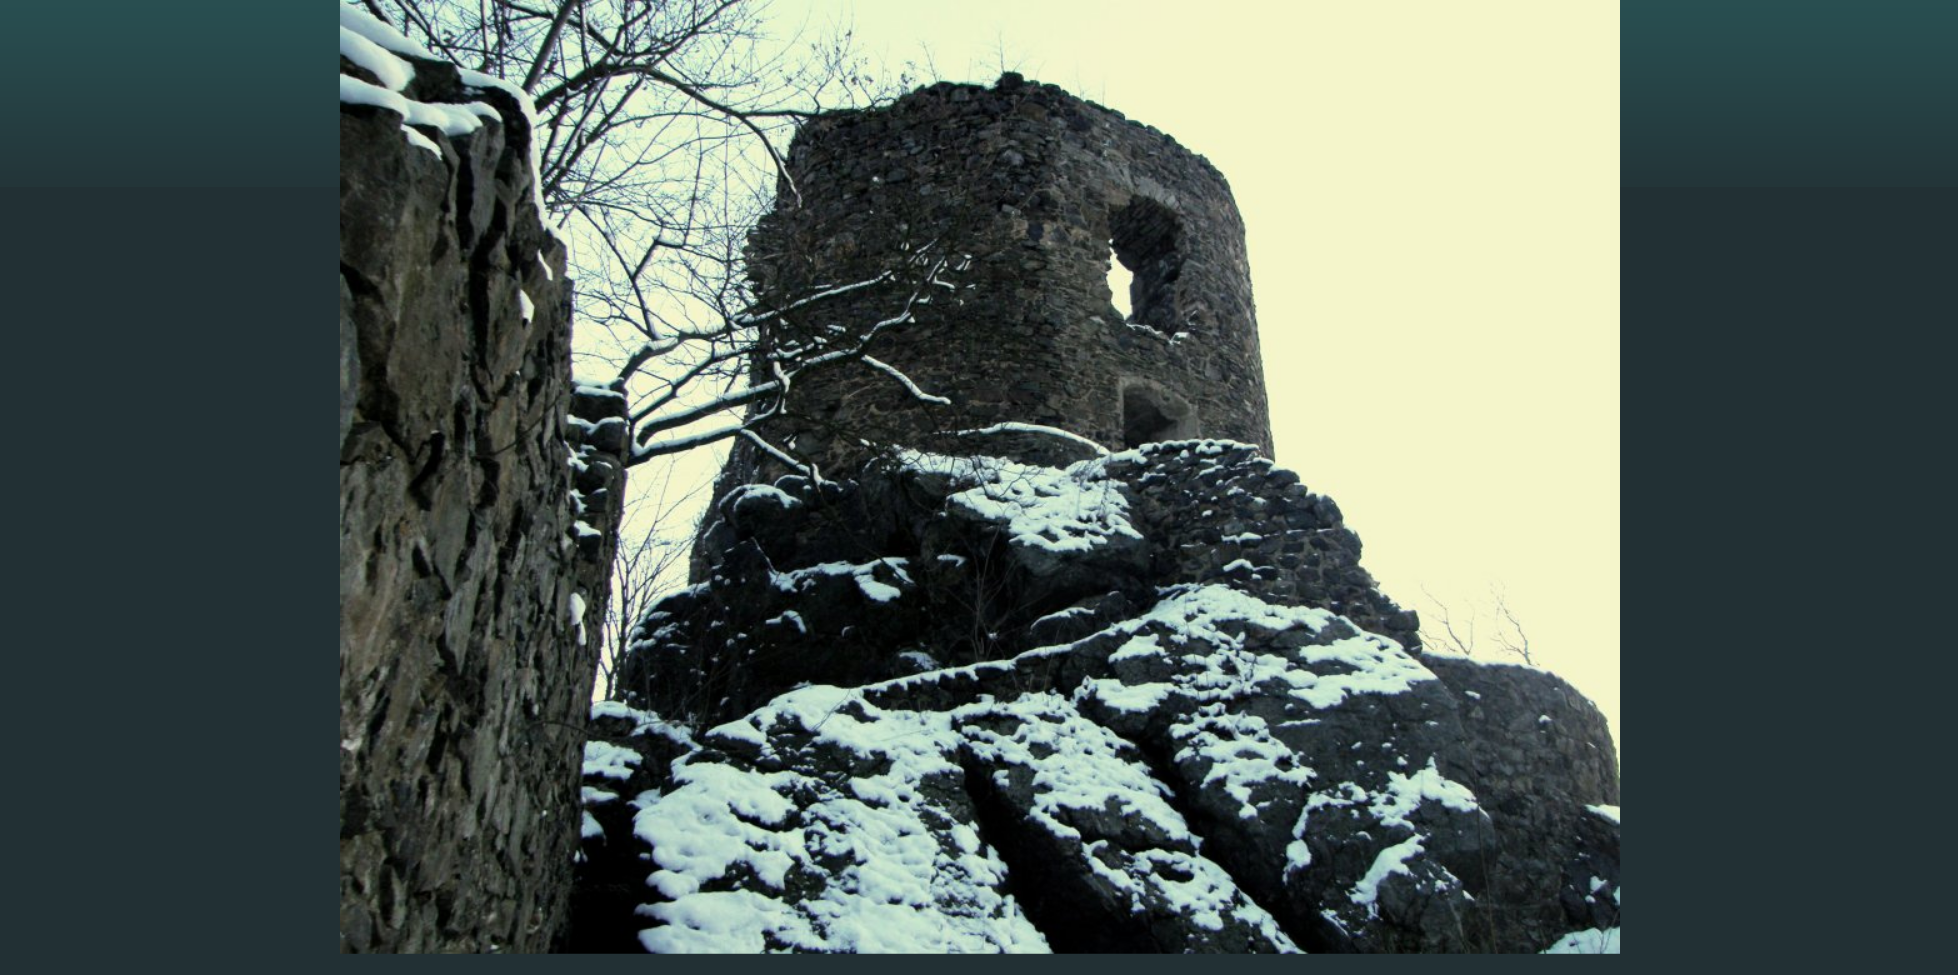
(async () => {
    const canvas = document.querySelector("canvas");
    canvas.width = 1958;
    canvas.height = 975;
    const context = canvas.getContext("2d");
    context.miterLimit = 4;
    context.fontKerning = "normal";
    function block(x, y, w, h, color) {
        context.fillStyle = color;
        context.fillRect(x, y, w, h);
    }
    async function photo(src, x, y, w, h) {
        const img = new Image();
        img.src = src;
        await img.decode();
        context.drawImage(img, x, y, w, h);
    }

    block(0, 0, 1958, 975, "rgb(34, 48, 52)");
    await photo("media/1.png", 0, 0, 1958, 187);
    await photo("media/2.png", 340, 0, 1280, 954);
})();
